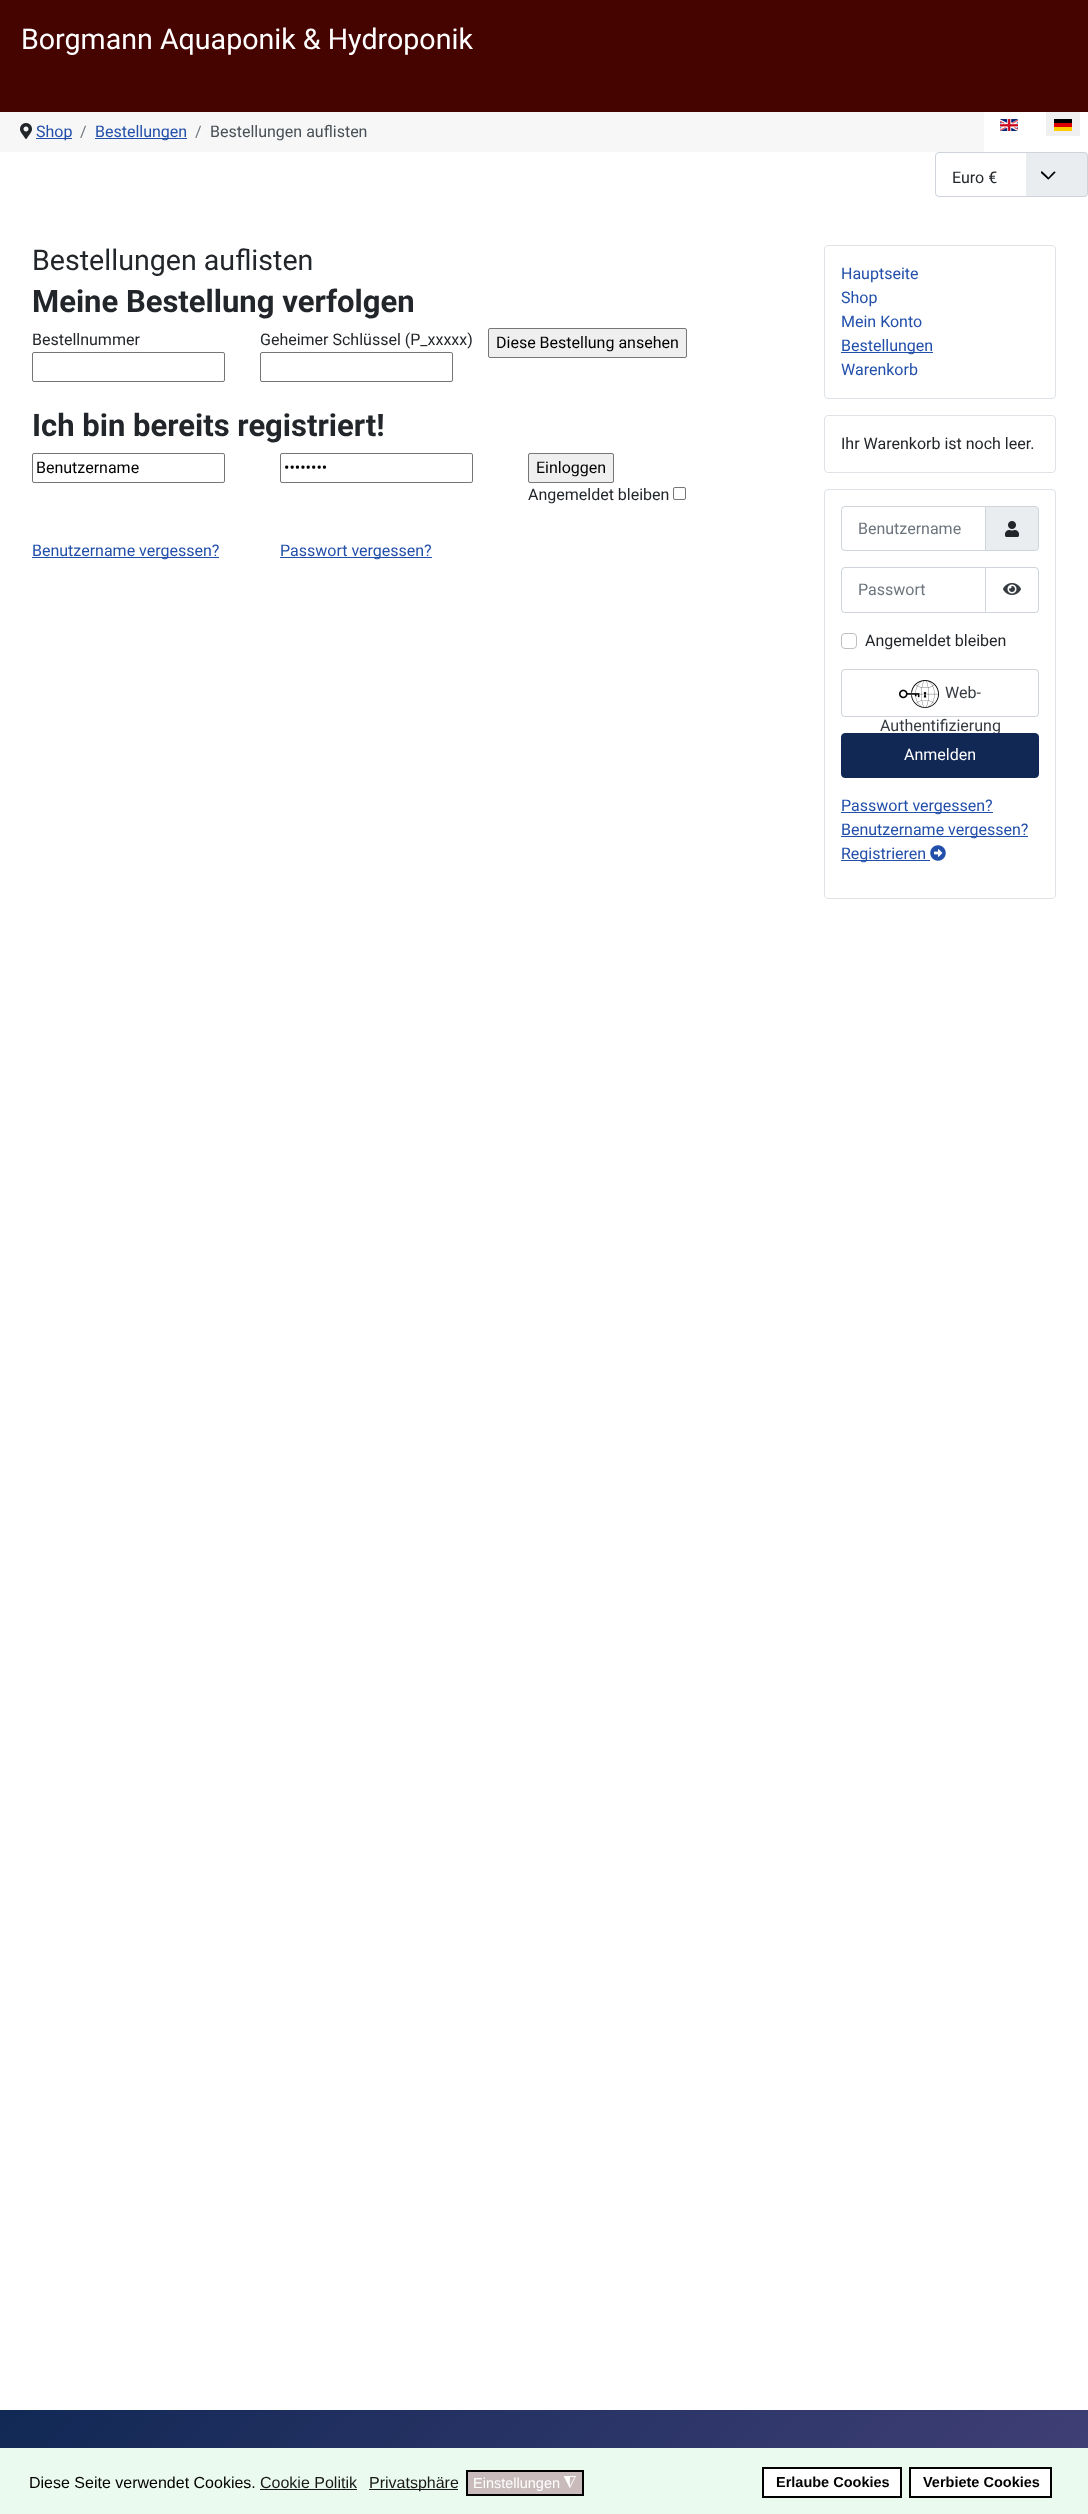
(async () => {
    const canvas = document.querySelector("canvas");
    canvas.width = 1088;
    canvas.height = 2514;
    const context = canvas.getContext("2d");
    context.miterLimit = 4;
    context.fontKerning = "normal";
    function write(s, x, y, font, color) {
        context.font = font;
        context.fillStyle = color;
        context.fillText(s, x, y);
    }
    function block(x, y, w, h, color) {
        context.fillStyle = color;
        context.fillRect(x, y, w, h);
    }
    function card(x, y, w, h, r, color) {
        context.fillStyle = color;
        context.beginPath();
        context.roundRect(x, y, w, h, r);
        context.fill();
    }
    async function photo(src, x, y, w, h) {
        const img = new Image();
        img.src = src;
        await img.decode();
        context.drawImage(img, x, y, w, h);
    }
    let gradient;

    block(0, 0, 1088, 2514, "rgb(255, 255, 255)");
    block(0, 0, 1088, 112, "rgb(70, 4, 1)");
    write("Borgmann Aquaponik & Hydroponik", 21, 49, "28.6px Roboto", "rgb(255, 255, 255)");
    block(0, 112, 984, 40, "rgb(247, 247, 247)");
    await photo("media/1.png", 20, 123, 12, 16);
    block(36, 138, 36, 1, "rgb(34, 79, 170)");
    write("Shop", 36, 137, "16px Roboto", "rgb(34, 79, 170)");
    write("/", 80, 137, "16px Roboto", "rgb(109, 117, 126)");
    block(95, 138, 92, 1, "rgb(34, 79, 170)");
    write("Bestellungen", 95, 137, "16px Roboto", "rgb(34, 79, 170)");
    write("/", 195, 137, "16px Roboto", "rgb(109, 117, 126)");
    write("Bestellungen auflisten", 210, 137, "16px Roboto", "rgb(72, 79, 86)");
    await photo("media/2.png", 1000, 119, 18, 12);
    block(1046, 112, 34, 24, "rgb(240, 240, 240)");
    await photo("media/3.png", 1054, 119, 18, 12);
    card(935, 152, 153, 45, 4, "rgb(234, 237, 240)");
    context.fillStyle = "rgb(0, 0, 0)";
    context.beginPath();
    context.moveTo(1041, 173);
    context.lineTo(1047, 178.5);
    context.bezierCurveTo(1048.5, 180, 1048, 180, 1049.5, 178.5);
    context.lineTo(1055.5, 172.5);
    context.bezierCurveTo(1055, 169.5, 1052.5, 173.5, 1052, 173.5);
    context.lineTo(1048.5, 177.5);
    context.lineTo(1044.5, 173.5);
    context.bezierCurveTo(1043.5, 172.5, 1041, 169.5, 1041, 172.5);
    context.closePath();
    context.fill();
    context.fillStyle = "rgb(255, 255, 255)";
    context.beginPath();
    context.roundRect(935, 152, 91, 45, [4, 0, 0, 4]);
    context.fill();
    context.beginPath();
    context.roundRect(935.5, 152.5, 152, 44, 3.5);
    context.strokeStyle = "rgb(206, 212, 218)";
    context.stroke();
    write("Euro €", 952, 183, "16px Roboto", "rgb(34, 38, 42)");
    write("Bestellungen auflisten", 32, 270, "28.6px Roboto", "rgb(34, 38, 42)");
    write("Meine Bestellung verfolgen", 32, 312, "bold 31px Roboto", "rgb(34, 38, 42)");
    write("Bestellnummer", 32, 345, "16px Roboto", "rgb(34, 38, 42)");
    context.beginPath();
    context.roundRect(32.5, 352.5, 192, 29, 1.5);
    context.strokeStyle = "rgb(118, 118, 118)";
    context.stroke();
    write("Geheimer Schlüssel (P_xxxxx)", 260, 345, "16px Roboto", "rgb(34, 38, 42)");
    context.beginPath();
    context.roundRect(260.5, 352.5, 192, 29, 1.5);
    context.stroke();
    context.fillStyle = "rgb(239, 239, 239)";
    context.beginPath();
    context.roundRect(488.5, 328.5, 198, 29, 1.5);
    context.fill();
    context.stroke();
    write("Diese Bestellung ansehen", 496, 348, "16px Roboto", "rgb(0, 0, 0)");
    write("Ich bin bereits registriert!", 32, 436, "bold 31px Roboto", "rgb(34, 38, 42)");
    context.beginPath();
    context.roundRect(32.5, 453.5, 192, 29, 1.5);
    context.stroke();
    write("Benutzername", 36, 473, "16px Roboto", "rgb(0, 0, 0)");
    context.beginPath();
    context.roundRect(280.5, 453.5, 192, 29, 1.5);
    context.stroke();
    write("••••••••", 284, 473, "16px Roboto", "rgb(0, 0, 0)");
    context.fillStyle = "rgb(239, 239, 239)";
    context.beginPath();
    context.roundRect(528.5, 453.5, 85, 29, 1.5);
    context.fill();
    context.stroke();
    write("Einloggen", 536, 473, "16px Roboto", "rgb(0, 0, 0)");
    write("Angemeldet bleiben", 528, 500, "16px Roboto", "rgb(34, 38, 42)");
    context.beginPath();
    context.roundRect(673.5, 487.5, 12, 12, 1.5);
    context.stroke();
    block(32, 557, 187, 1, "rgb(34, 79, 170)");
    write("Benutzername vergessen?", 32, 556, "16px Roboto", "rgb(34, 79, 170)");
    block(280, 557, 152, 1, "rgb(34, 79, 170)");
    write("Passwort vergessen?", 280, 556, "16px Roboto", "rgb(34, 79, 170)");
    context.beginPath();
    context.roundRect(824.5, 245.5, 231, 153, 3.5);
    context.strokeStyle = "rgb(223, 227, 231)";
    context.stroke();
    write("Hauptseite", 841, 279, "16px Roboto", "rgb(34, 79, 170)");
    write("Shop", 841, 303, "16px Roboto", "rgb(34, 79, 170)");
    write("Mein Konto", 841, 327, "16px Roboto", "rgb(34, 79, 170)");
    block(841, 352, 92, 1, "rgb(34, 79, 170)");
    write("Bestellungen", 841, 351, "16px Roboto", "rgb(34, 79, 170)");
    write("Warenkorb", 841, 375, "16px Roboto", "rgb(34, 79, 170)");
    context.beginPath();
    context.roundRect(824.5, 415.5, 231, 57, 3.5);
    context.stroke();
    write("Ihr Warenkorb ist noch leer.", 841, 449, "16px Roboto", "rgb(34, 38, 42)");
    context.beginPath();
    context.roundRect(824.5, 489.5, 231, 409, 3.5);
    context.stroke();
    context.fillStyle = "rgb(234, 237, 240)";
    context.beginPath();
    context.roundRect(985.5, 506.5, 53, 44, [0, 3.5, 3.5, 0]);
    context.fill();
    context.strokeStyle = "rgb(206, 212, 218)";
    context.stroke();
    context.beginPath();
    context.roundRect(841.5, 506.5, 144, 44, [3.5, 0, 0, 3.5]);
    context.stroke();
    write("Benutzername", 858, 534, "16px Roboto", "rgb(109, 117, 126)");
    await photo("media/4.png", 1005, 521, 14, 16);
    context.beginPath();
    context.roundRect(841.5, 567.5, 144, 45, [3.5, 0, 0, 3.5]);
    context.stroke();
    write("Passwort", 858, 595, "16px Roboto", "rgb(109, 117, 126)");
    context.fillStyle = "rgb(255, 255, 255)";
    context.beginPath();
    context.roundRect(985.5, 567.5, 53, 45, [0, 3.5, 3.5, 0]);
    context.fill();
    context.stroke();
    await photo("media/5.png", 1003, 583, 18, 12);
    context.beginPath();
    context.roundRect(841.5, 633.5, 15, 15, 3.5);
    context.strokeStyle = "rgb(191, 191, 191)";
    context.stroke();
    write("Angemeldet bleiben", 865, 646, "16px Roboto", "rgb(34, 38, 42)");
    context.beginPath();
    context.roundRect(841.5, 669.5, 197, 47, 3.5);
    context.strokeStyle = "rgb(206, 212, 218)";
    context.stroke();
    await photo("media/6.png", 899, 680, 40, 28);
    write("Web-", 945, 698, "16px Roboto", "rgb(53, 59, 65)");
    write("Authentifizierung", 880, 731, "16px Roboto", "rgb(53, 59, 65)");
    context.fillStyle = "rgb(17, 40, 85)";
    context.beginPath();
    context.roundRect(841.5, 733.5, 197, 44, 3.5);
    context.fill();
    context.strokeStyle = "rgb(17, 40, 85)";
    context.stroke();
    write("Anmelden", 904, 760, "16px Roboto", "rgb(255, 255, 255)");
    block(841, 812, 152, 1, "rgb(34, 79, 170)");
    write("Passwort vergessen?", 841, 811, "16px Roboto", "rgb(34, 79, 170)");
    block(841, 836, 187, 1, "rgb(34, 79, 170)");
    write("Benutzername vergessen?", 841, 835, "16px Roboto", "rgb(34, 79, 170)");
    block(841, 860, 89, 1, "rgb(34, 79, 170)");
    write("Registrieren", 841, 859, "16px Roboto", "rgb(34, 79, 170)");
    await photo("media/7.png", 930, 845, 16, 16);
    gradient = context.createLinearGradient(246, 2164, 842, 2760);
    gradient.addColorStop(0, "rgb(17, 40, 85)");
    gradient.addColorStop(1, "rgb(66, 64, 119)");
    context.fillStyle = gradient;
    context.fillRect(0, 2410, 1088, 38);
    block(0, 2448, 1088, 66, "rgb(235, 250, 238)");
    write("Diese Seite verwendet Cookies.", 29, 2488, "16px Liberation Sans", "rgb(0, 0, 0)");
    write("Cookie Politik", 260, 2488, "16px Liberation Sans", "rgb(24, 25, 24)");
    block(260, 2489, 97, 1, "rgb(24, 25, 24)");
    block(369, 2489, 89, 1, "rgb(24, 25, 24)");
    write("Privatsphäre", 369, 2488, "16px Liberation Sans", "rgb(24, 25, 24)");
    context.fillStyle = "rgb(201, 187, 187)";
    context.beginPath();
    context.rect(467, 2471, 116, 24);
    context.fill();
    context.strokeStyle = "rgb(0, 0, 0)";
    context.lineWidth = 2;
    context.stroke();
    write("Einstellungen", 473, 2488, "14.5px Liberation Sans", "rgb(255, 255, 255)");
    context.font = "16px DejaVu Sans";
    context.save();
    context.translate(576, 2478);
    context.rotate(180 * Math.PI / 180);
    context.fillText("◮", 0, 0);
    context.restore();
    context.beginPath();
    context.rect(763, 2468, 138, 29);
    context.fill();
    context.stroke();
    write("Erlaube Cookies", 776, 2487, "bold 14.5px Liberation Sans", "rgb(0, 0, 0)");
    context.fillStyle = "rgb(255, 255, 255)";
    context.beginPath();
    context.rect(910, 2468, 141, 29);
    context.fill();
    context.stroke();
    write("Verbiete Cookies", 923, 2487, "bold 14.5px Liberation Sans", "rgb(0, 0, 0)");
})();
